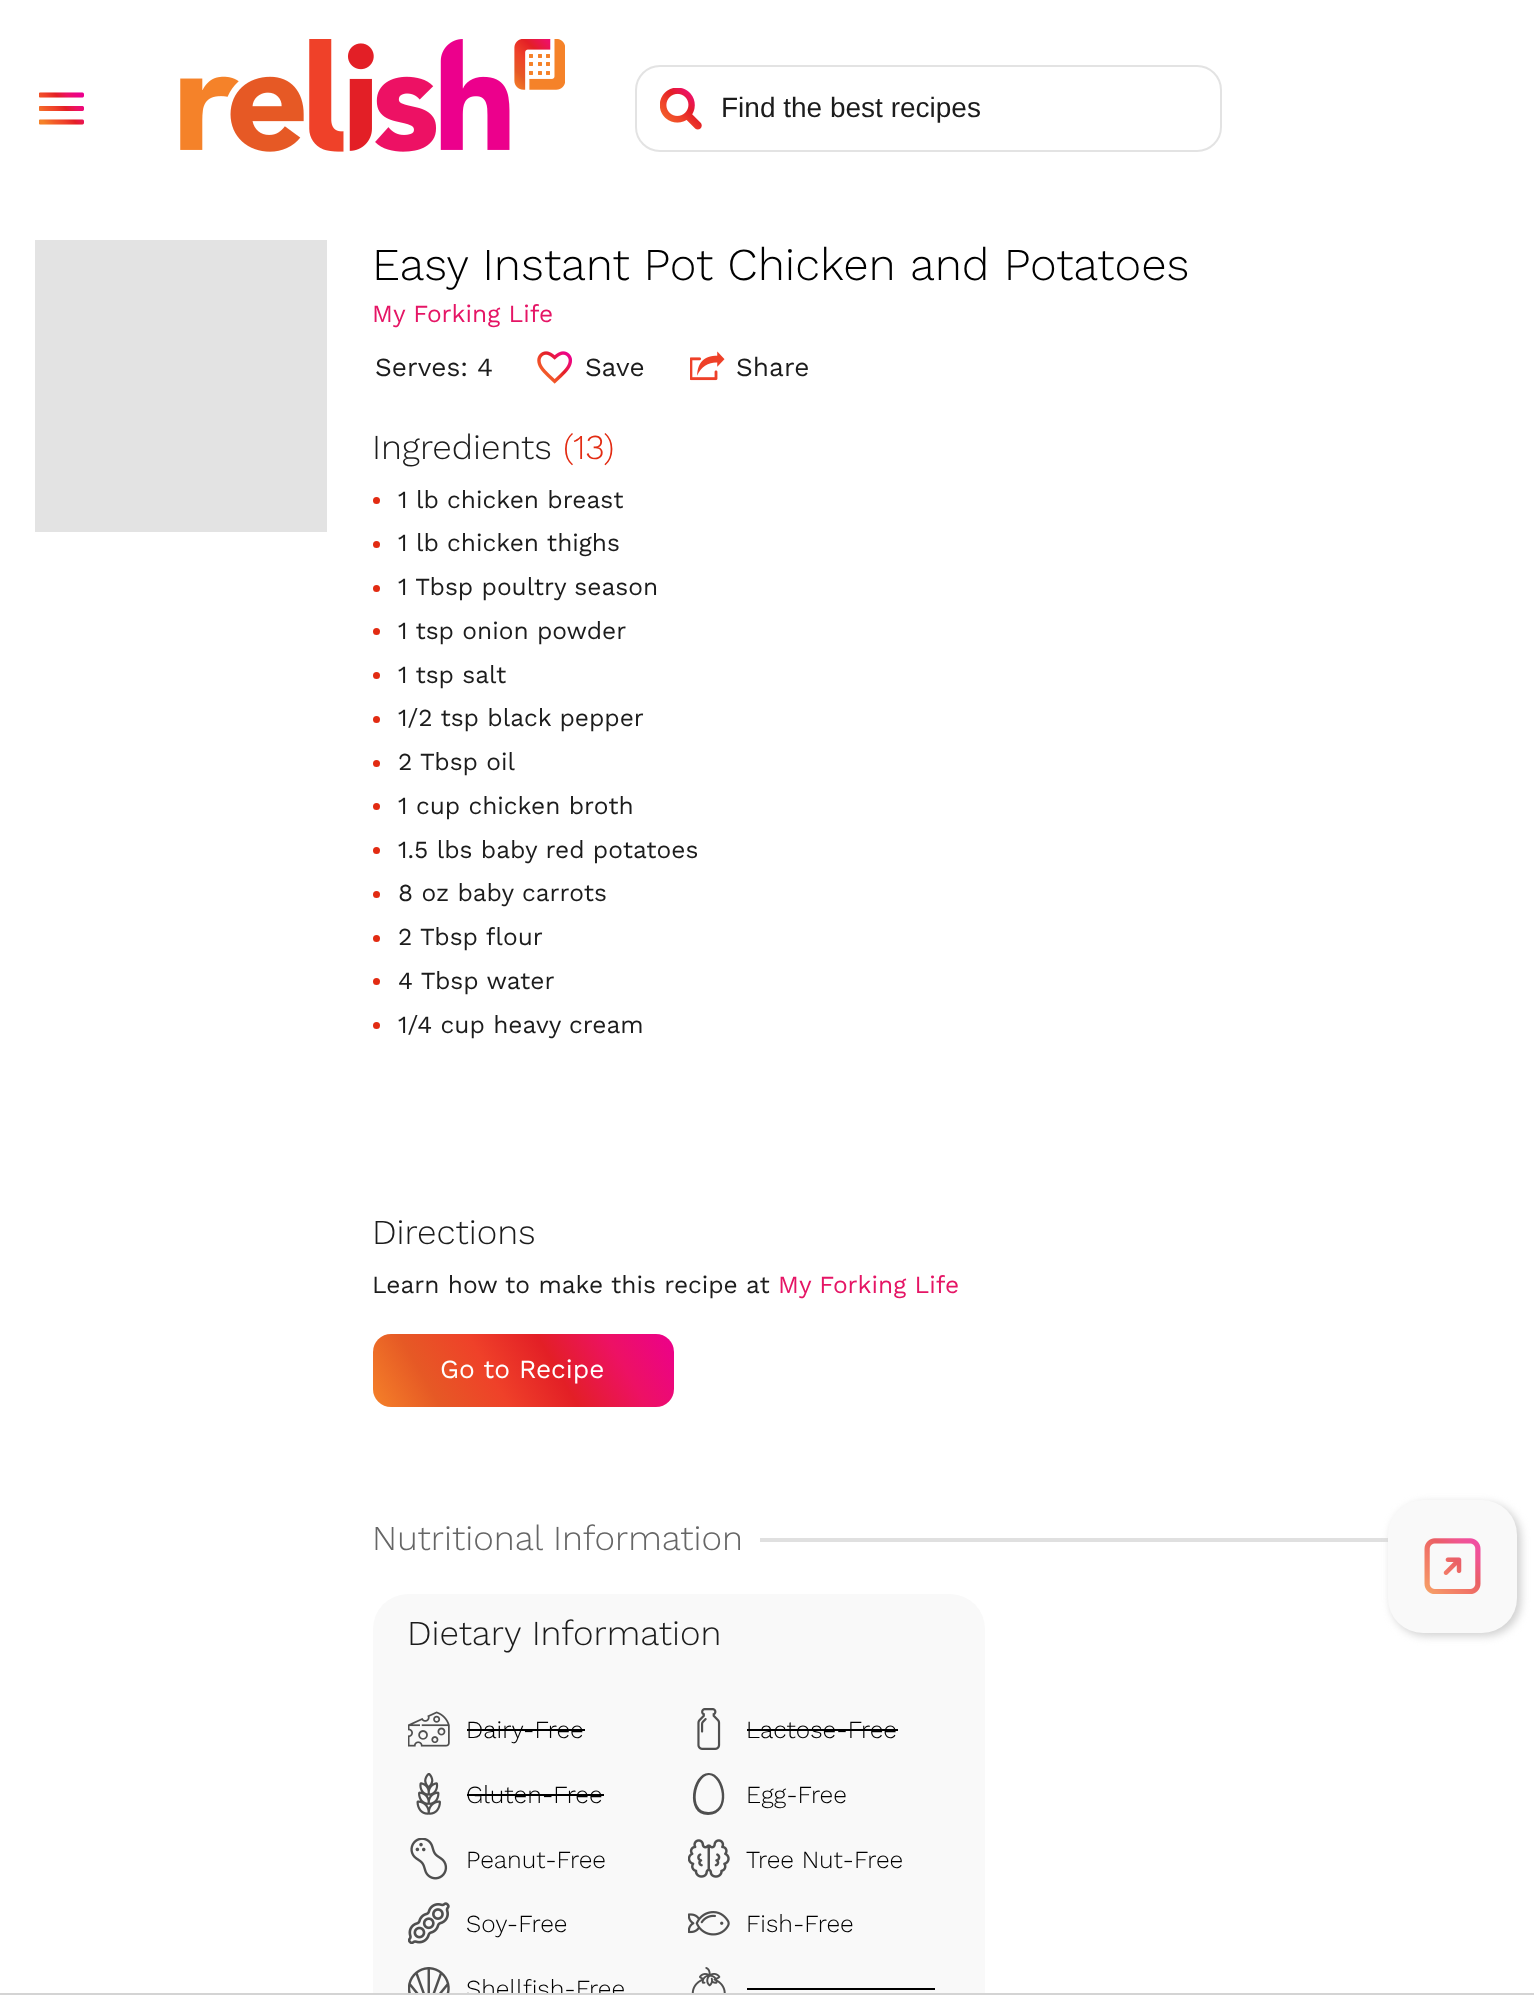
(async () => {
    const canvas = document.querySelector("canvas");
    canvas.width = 1534;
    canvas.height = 2003;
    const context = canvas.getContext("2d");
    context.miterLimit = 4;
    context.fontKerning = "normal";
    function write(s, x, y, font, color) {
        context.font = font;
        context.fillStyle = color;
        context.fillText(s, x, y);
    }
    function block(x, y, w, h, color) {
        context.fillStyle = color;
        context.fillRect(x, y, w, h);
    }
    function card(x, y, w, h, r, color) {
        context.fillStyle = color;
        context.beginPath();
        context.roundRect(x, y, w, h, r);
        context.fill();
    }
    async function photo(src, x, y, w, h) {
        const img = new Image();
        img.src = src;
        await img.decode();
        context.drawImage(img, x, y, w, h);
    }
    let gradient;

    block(0, 0, 1534, 2003, "rgb(255, 255, 255)");
    await photo("media/1.png", 39, 92, 45, 33);
    await photo("media/2.png", 180, 39, 385, 113);
    context.beginPath();
    context.roundRect(636, 66, 585, 85, 24);
    context.strokeStyle = "rgb(227, 227, 227)";
    context.lineWidth = 2;
    context.stroke();
    await photo("media/3.png", 660, 88, 42, 42);
    write("Find the best recipes", 721, 117, "28px Liberation Sans", "rgb(28, 28, 28)");
    block(35, 240, 292, 292, "rgb(227, 227, 227)");
    write("Easy Instant Pot Chicken and Potatoes", 372, 280, "300 45.5px Work Sans", "rgb(0, 0, 0)");
    write("My Forking Life", 372, 322, "24.5px Work Sans", "rgb(229, 21, 101)");
    write("Serves: 4", 375, 376, "26.25px Work Sans", "rgb(28, 28, 28)");
    await photo("media/4.png", 537, 351, 35, 33);
    write("Save", 585, 376, "26.25px Work Sans", "rgb(28, 28, 28)");
    await photo("media/5.png", 690, 351, 35, 30);
    write("Share", 736, 376, "26.25px Work Sans", "rgb(28, 28, 28)");
    write("Ingredients", 372, 459, "300 35px Work Sans", "rgb(28, 28, 28)");
    write("(13)", 563, 459, "300 35px Work Sans", "rgb(226, 43, 18)");
    context.beginPath();
    context.arc(376.5, 500.5, 3.5, 0, Math.PI * 2);
    context.fill();
    write("1 lb chicken breast", 398, 508, "24.5px Work Sans", "rgb(28, 28, 28)");
    context.fillStyle = "rgb(226, 43, 18)";
    context.beginPath();
    context.arc(376.5, 544.5, 3.5, 0, Math.PI * 2);
    context.fill();
    write("1 lb chicken thighs", 398, 551, "24.5px Work Sans", "rgb(28, 28, 28)");
    context.fillStyle = "rgb(226, 43, 18)";
    context.beginPath();
    context.arc(376.5, 588.5, 3.5, 0, Math.PI * 2);
    context.fill();
    write("1 Tbsp poultry season", 398, 595, "24.5px Work Sans", "rgb(28, 28, 28)");
    context.fillStyle = "rgb(226, 43, 18)";
    context.beginPath();
    context.arc(376.5, 631.5, 3.5, 0, Math.PI * 2);
    context.fill();
    write("1 tsp onion powder", 398, 639, "24.5px Work Sans", "rgb(28, 28, 28)");
    context.fillStyle = "rgb(226, 43, 18)";
    context.beginPath();
    context.arc(376.5, 675.5, 3.5, 0, Math.PI * 2);
    context.fill();
    write("1 tsp salt", 398, 683, "24.5px Work Sans", "rgb(28, 28, 28)");
    context.fillStyle = "rgb(226, 43, 18)";
    context.beginPath();
    context.arc(376.5, 719.5, 3.5, 0, Math.PI * 2);
    context.fill();
    write("1/2 tsp black pepper", 398, 726, "24.5px Work Sans", "rgb(28, 28, 28)");
    context.fillStyle = "rgb(226, 43, 18)";
    context.beginPath();
    context.arc(376.5, 763.5, 3.5, 0, Math.PI * 2);
    context.fill();
    write("2 Tbsp oil", 398, 770, "24.5px Work Sans", "rgb(28, 28, 28)");
    context.fillStyle = "rgb(226, 43, 18)";
    context.beginPath();
    context.arc(376.5, 806.5, 3.5, 0, Math.PI * 2);
    context.fill();
    write("1 cup chicken broth", 398, 814, "24.5px Work Sans", "rgb(28, 28, 28)");
    context.fillStyle = "rgb(226, 43, 18)";
    context.beginPath();
    context.arc(376.5, 850.5, 3.5, 0, Math.PI * 2);
    context.fill();
    write("1.5 lbs baby red potatoes", 398, 858, "24.5px Work Sans", "rgb(28, 28, 28)");
    context.fillStyle = "rgb(226, 43, 18)";
    context.beginPath();
    context.arc(376.5, 894.5, 3.5, 0, Math.PI * 2);
    context.fill();
    write("8 oz baby carrots", 398, 901, "24.5px Work Sans", "rgb(28, 28, 28)");
    context.fillStyle = "rgb(226, 43, 18)";
    context.beginPath();
    context.arc(376.5, 938.5, 3.5, 0, Math.PI * 2);
    context.fill();
    write("2 Tbsp flour", 398, 945, "24.5px Work Sans", "rgb(28, 28, 28)");
    context.fillStyle = "rgb(226, 43, 18)";
    context.beginPath();
    context.arc(376.5, 981.5, 3.5, 0, Math.PI * 2);
    context.fill();
    write("4 Tbsp water", 398, 989, "24.5px Work Sans", "rgb(28, 28, 28)");
    context.fillStyle = "rgb(226, 43, 18)";
    context.beginPath();
    context.arc(376.5, 1025.5, 3.5, 0, Math.PI * 2);
    context.fill();
    write("1/4 cup heavy cream", 398, 1033, "24.5px Work Sans", "rgb(28, 28, 28)");
    write("Directions", 372, 1244, "300 35px Work Sans", "rgb(28, 28, 28)");
    write("Learn how to make this recipe at", 372, 1293, "24.5px Work Sans", "rgb(28, 28, 28)");
    write("My Forking Life", 778, 1293, "24.5px Work Sans", "rgb(229, 21, 101)");
    gradient = context.createLinearGradient(394, 1445, 652, 1296);
    gradient.addColorStop(0, "rgb(245, 130, 41)");
    gradient.addColorStop(0.2, "rgb(230, 89, 37)");
    gradient.addColorStop(0.4, "rgb(239, 65, 41)");
    gradient.addColorStop(0.6, "rgb(227, 31, 38)");
    gradient.addColorStop(0.8, "rgb(237, 17, 100)");
    gradient.addColorStop(1, "rgb(236, 0, 140)");
    context.fillStyle = gradient;
    context.beginPath();
    context.roundRect(373, 1334, 301, 73, 18);
    context.fill();
    write("Go to Recipe", 440, 1378, "26.25px Work Sans", "rgb(255, 255, 255)");
    block(760, 1538, 628, 4, "rgb(224, 224, 224)");
    write("Nutritional Information", 372, 1550, "300 35px Work Sans", "rgb(102, 102, 102)");
    card(373, 1594, 612, 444, 35, "rgb(249, 249, 249)");
    write("Dietary Information", 407, 1645, "300 35px Work Sans", "rgb(28, 28, 28)");
    await photo("media/6.png", 408, 1711, 42, 36);
    write("Dairy-Free", 466, 1738, "300 24.5px Work Sans", "rgb(0, 0, 0)");
    block(467, 1729, 118, 2, "rgb(0, 0, 0)");
    await photo("media/7.png", 697, 1708, 24, 42);
    write("Lactose-Free", 746, 1738, "300 24.5px Work Sans", "rgb(0, 0, 0)");
    block(747, 1729, 151, 2, "rgb(0, 0, 0)");
    await photo("media/8.png", 416, 1773, 25, 42);
    write("Gluten-Free", 466, 1803, "300 24.5px Work Sans", "rgb(0, 0, 0)");
    block(467, 1794, 137, 2, "rgb(0, 0, 0)");
    context.fillStyle = "rgb(79, 79, 79)";
    context.beginPath();
    context.moveTo(708, 1815);
    context.bezierCurveTo(684, 1815, 692, 1772, 709, 1773);
    context.bezierCurveTo(726, 1773, 733, 1815, 708, 1815);
    context.closePath();
    context.moveTo(709, 1775);
    context.bezierCurveTo(695, 1776, 688, 1813, 709, 1812);
    context.bezierCurveTo(730, 1811, 722, 1776, 709, 1775);
    context.closePath();
    context.fill();
    write("Egg-Free", 746, 1803, "300 24.5px Work Sans", "rgb(0, 0, 0)");
    await photo("media/9.png", 410, 1838, 38, 42);
    write("Peanut-Free", 466, 1868, "300 24.5px Work Sans", "rgb(0, 0, 0)");
    await photo("media/10.png", 688, 1839, 42, 39);
    write("Tree Nut-Free", 746, 1868, "300 24.5px Work Sans", "rgb(0, 0, 0)");
    await photo("media/11.png", 408, 1902, 42, 42);
    write("Soy-Free", 466, 1932, "300 24.5px Work Sans", "rgb(0, 0, 0)");
    await photo("media/12.png", 688, 1911, 42, 25);
    write("Fish-Free", 746, 1932, "300 24.5px Work Sans", "rgb(0, 0, 0)");
    await photo("media/13.png", 408, 1967, 42, 26);
    write("Shellfish-Free", 466, 1997, "300 24.5px Work Sans", "rgb(0, 0, 0)");
    await photo("media/14.png", 691, 1967, 35, 26);
    block(747, 1988, 188, 2, "rgb(0, 0, 0)");
    context.fillStyle = "rgb(208, 208, 208)";
    context.filter = "blur(4.5px)";
    context.beginPath();
    context.roundRect(1391, 1503, 130, 133, 35);
    context.fill();
    context.filter = "none";
    card(1388, 1500, 129, 133, 35, "rgb(249, 249, 249)");
    await photo("media/15.png", 1424, 1538, 57, 56);
    block(373, 1995, 612, 8, "rgb(255, 255, 255)");
    block(0, 1993, 1534, 2, "rgb(212, 212, 212)");
})();
